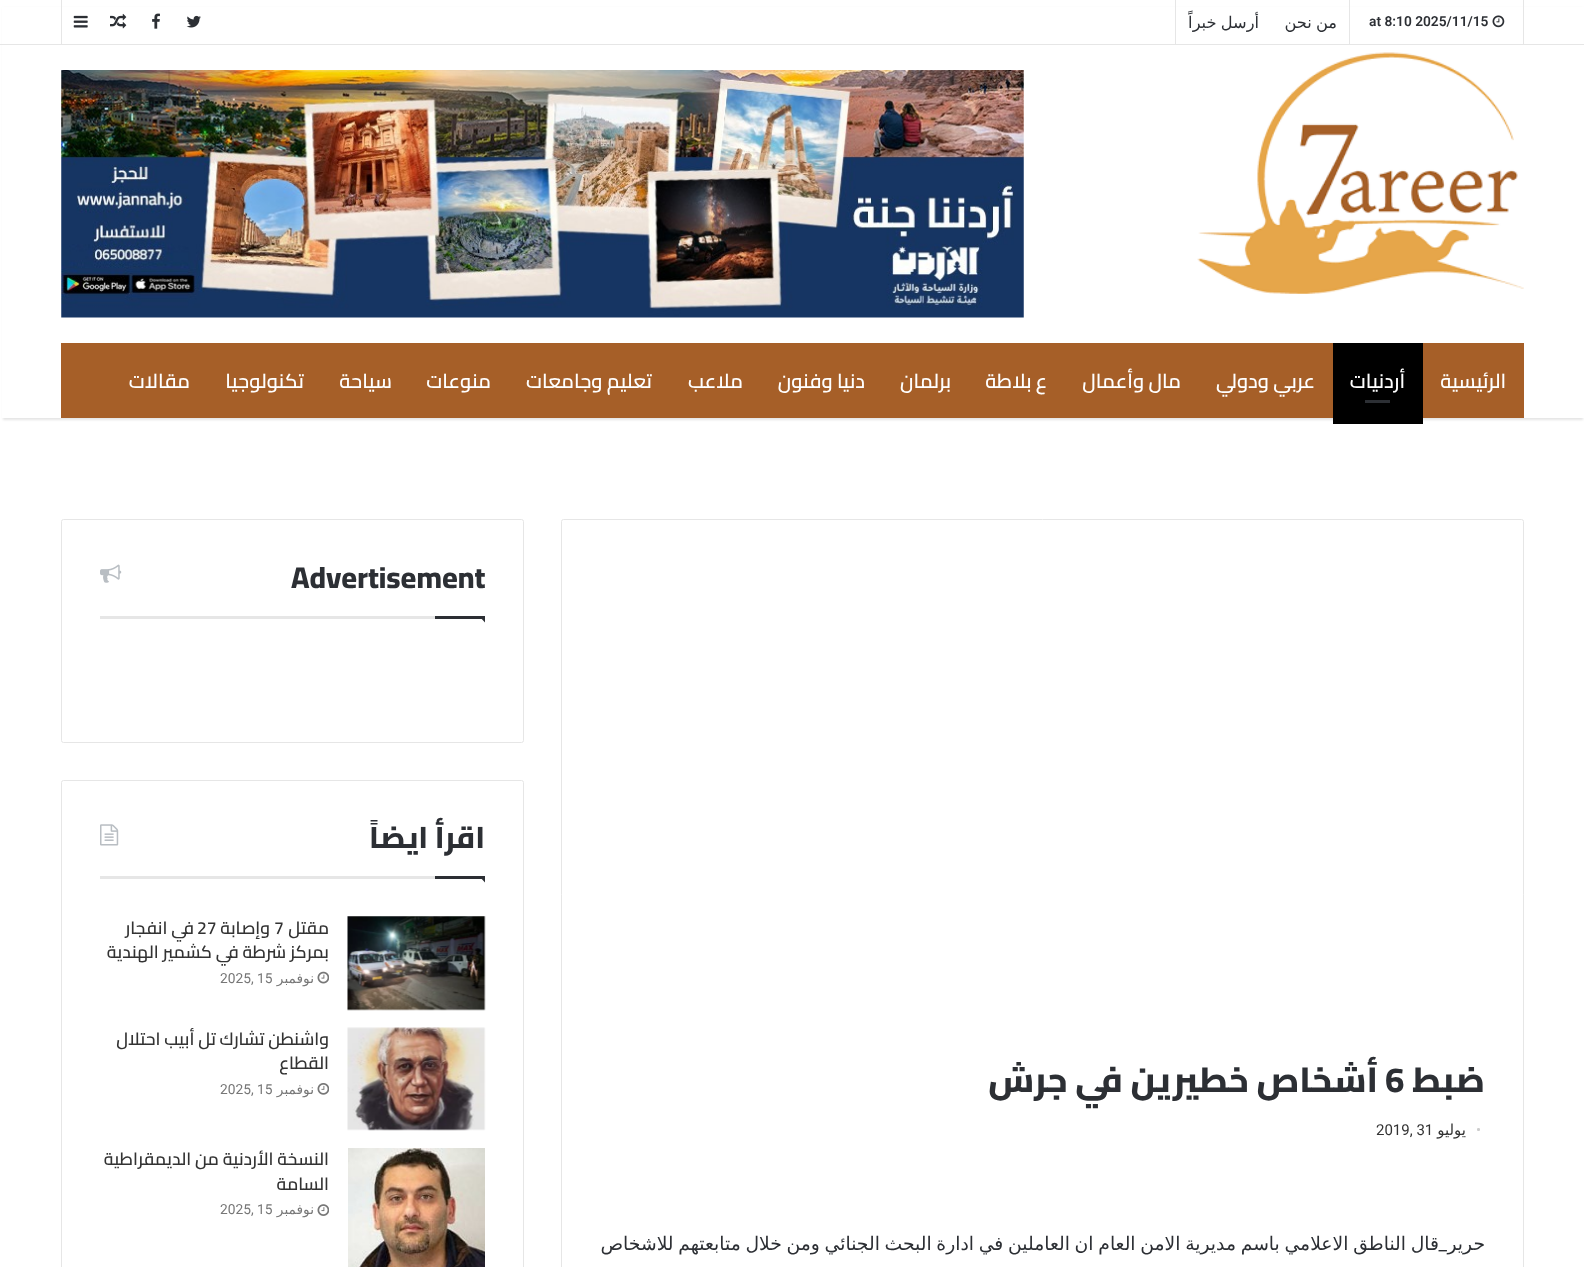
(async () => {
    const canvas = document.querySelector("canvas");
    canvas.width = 1584;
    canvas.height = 1267;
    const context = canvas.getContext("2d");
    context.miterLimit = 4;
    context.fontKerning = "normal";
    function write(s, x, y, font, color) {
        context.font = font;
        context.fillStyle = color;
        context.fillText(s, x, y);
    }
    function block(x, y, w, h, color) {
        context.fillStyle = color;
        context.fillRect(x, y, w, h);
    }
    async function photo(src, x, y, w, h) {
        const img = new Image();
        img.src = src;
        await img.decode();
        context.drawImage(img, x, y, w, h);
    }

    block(0, 0, 1584, 1267, "rgb(255, 255, 255)");
    context.fillStyle = "rgba(0, 0, 0, 0.1)";
    context.filter = "blur(1px)";
    context.beginPath();
    context.rect(3, 8, 1580, 412);
    context.fill();
    context.filter = "none";
    block(2, 7, 1582, 411, "rgb(255, 255, 255)");
    block(0, 44, 1584, 1, "rgb(230, 230, 230)");
    block(1523, 0, 1, 44, "rgb(230, 230, 230)");
    await photo("media/1.png", 1492, 15, 13, 13);
    write("at 8:10 2025/11/15", 1369, 26, "600 13.75px Roboto", "rgb(44, 47, 52)");
    block(1349, 0, 1, 44, "rgb(230, 230, 230)");
    block(1175, 0, 1, 44, "rgb(230, 230, 230)");
    context.wordSpacing = "-1px";
    context.direction = "rtl";
    write("من نحن", 1337, 28, "16.25px DejaVu Sans", "rgb(44, 47, 52)");
    write("أرسل خبراً", 1259, 28, "16.25px DejaVu Sans", "rgb(44, 47, 52)");
    await photo("media/2.png", 186, 15, 15, 13);
    await photo("media/3.png", 152, 13, 8, 16);
    await photo("media/4.png", 110, 13, 17, 16);
    block(61, 0, 1, 44, "rgb(230, 230, 230)");
    await photo("media/5.png", 73, 15, 15, 13);
    await photo("media/6.png", 1197, 52, 327, 242);
    await photo("media/7.png", 61, 70, 963, 248);
    block(61, 343, 1463, 75, "rgb(166, 95, 40)");
    context.wordSpacing = "0px";
    write("الرئيسية", 1506, 388, "600 20px Cairo", "rgb(255, 255, 255)");
    block(1333, 343, 90, 81, "rgb(0, 0, 0)");
    write("أردنيات", 1405, 388, "600 20px Cairo", "rgb(255, 255, 255)");
    block(1365, 400, 25, 3, "rgb(44, 47, 52)");
    write("عربي ودولي", 1315, 388, "600 20px Cairo", "rgb(255, 255, 255)");
    write("مال وأعمال", 1181, 388, "600 20px Cairo", "rgb(255, 255, 255)");
    write("ع بلاطة", 1047, 388, "600 20px Cairo", "rgb(255, 255, 255)");
    write("برلمان", 951, 388, "600 20px Cairo", "rgb(255, 255, 255)");
    write("دنيا وفنون", 865, 388, "600 20px Cairo", "rgb(255, 255, 255)");
    write("ملاعب", 743, 388, "600 20px Cairo", "rgb(255, 255, 255)");
    write("تعليم وجامعات", 652, 388, "600 20px Cairo", "rgb(255, 255, 255)");
    write("منوعات", 491, 388, "600 20px Cairo", "rgb(255, 255, 255)");
    write("سياحة", 392, 388, "600 20px Cairo", "rgb(255, 255, 255)");
    write("تكنولوجيا", 304, 388, "600 20px Cairo", "rgb(255, 255, 255)");
    write("مقالات", 190, 388, "600 20px Cairo", "rgb(255, 255, 255)");
    context.beginPath();
    context.roundRect(561.5, 519.5, 962, 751, 2);
    context.strokeStyle = "rgb(230, 230, 230)";
    context.stroke();
    write("ضبط", 1485, 1092, "800 35px Cairo", "rgb(44, 47, 52)");
    context.direction = "ltr";
    write("6", 1385, 1092, "800 35px Cairo", "rgb(44, 47, 52)");
    context.direction = "rtl";
    write("أشخاص خطيرين في جرش", 1378, 1092, "800 35px Cairo", "rgb(44, 47, 52)");
    context.direction = "ltr";
    write("•", 1476, 1135, "15px Roboto", "rgb(204, 204, 204)");
    context.direction = "rtl";
    write("يوليو", 1466, 1135, "15px DejaVu Sans", "rgb(51, 51, 51)");
    context.direction = "ltr";
    write("2019, 31", 1376, 1135, "15px Roboto", "rgb(51, 51, 51)");
    context.direction = "rtl";
    write("_", 1447, 1250, "18.75px Roboto", "rgb(44, 47, 52)");
    write("حرير", 1485, 1250, "18.75px DejaVu Sans", "rgb(44, 47, 52)");
    context.wordSpacing = "-1.25px";
    write("قال الناطق الاعلامي باسم مديرية الامن العام ان العاملين في ادارة البحث الجنائي ومن خلال متابعتهم للاشخاص", 1439, 1250, "18.75px DejaVu Sans", "rgb(44, 47, 52)");
    context.beginPath();
    context.roundRect(61.5, 519.5, 462, 223, 2);
    context.stroke();
    block(100, 616, 335, 3, "rgb(230, 230, 230)");
    context.wordSpacing = "0px";
    context.direction = "ltr";
    write("Advertisement", 291, 588, "800 30px Cairo", "rgb(44, 47, 52)");
    await photo("media/8.png", 100, 564, 22, 19);
    context.beginPath();
    context.moveTo(479, 616);
    context.lineTo(485, 616);
    context.lineTo(485, 622.5);
    context.closePath();
    context.fill();
    block(435, 616, 50, 3, "rgb(44, 47, 52)");
    context.beginPath();
    context.roundRect(61.5, 780.5, 462, 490, 2);
    context.stroke();
    block(100, 876, 335, 3, "rgb(230, 230, 230)");
    context.direction = "rtl";
    write("اقرأ ايضاً", 485, 848, "800 30px Cairo", "rgb(44, 47, 52)");
    await photo("media/9.png", 100, 824, 19, 22);
    context.beginPath();
    context.moveTo(479, 876);
    context.lineTo(485, 876);
    context.lineTo(485, 882.5);
    context.closePath();
    context.fill();
    block(435, 876, 50, 3, "rgb(44, 47, 52)");
    await photo("media/10.png", 347, 916, 139, 95);
    write("مقتل", 329, 934, "600 17.5px Cairo", "rgb(51, 51, 51)");
    context.direction = "ltr";
    write("7", 274, 934, "600 17.5px Cairo", "rgb(51, 51, 51)");
    context.direction = "rtl";
    write("وإصابة", 270, 934, "600 17.5px Cairo", "rgb(51, 51, 51)");
    context.direction = "ltr";
    write("27", 197, 934, "600 17.5px Cairo", "rgb(51, 51, 51)");
    context.direction = "rtl";
    write("في انفجار", 194, 934, "600 17.5px Cairo", "rgb(51, 51, 51)");
    write("بمركز شرطة في كشمير الهندية", 329, 958, "600 17.5px Cairo", "rgb(51, 51, 51)");
    await photo("media/11.png", 317, 971, 12, 13);
    write("نوفمبر", 314, 983, "13.75px DejaVu Sans", "rgb(119, 119, 119)");
    context.direction = "ltr";
    write("2025, 15", 220, 983, "13.75px Roboto", "rgb(119, 119, 119)");
    await photo("media/12.png", 347, 1027, 139, 104);
    context.direction = "rtl";
    write("واشنطن تشارك تل أبيب احتلال", 329, 1045, "600 17.5px Cairo", "rgb(51, 51, 51)");
    write("القطاع", 329, 1069, "600 17.5px Cairo", "rgb(51, 51, 51)");
    await photo("media/13.png", 317, 1083, 12, 12);
    write("نوفمبر", 314, 1094, "13.75px DejaVu Sans", "rgb(119, 119, 119)");
    context.direction = "ltr";
    write("2025, 15", 220, 1094, "13.75px Roboto", "rgb(119, 119, 119)");
    await photo("media/14.png", 348, 1148, 137, 119);
    context.direction = "rtl";
    write("النسخة الأردنية من الديمقراطية", 329, 1165, "600 17.5px Cairo", "rgb(51, 51, 51)");
    write("السامة", 329, 1190, "600 17.5px Cairo", "rgb(51, 51, 51)");
    await photo("media/15.png", 317, 1204, 12, 12);
    write("نوفمبر", 314, 1214, "13.75px DejaVu Sans", "rgb(119, 119, 119)");
    context.direction = "ltr";
    write("2025, 15", 220, 1214, "13.75px Roboto", "rgb(119, 119, 119)");
})();
